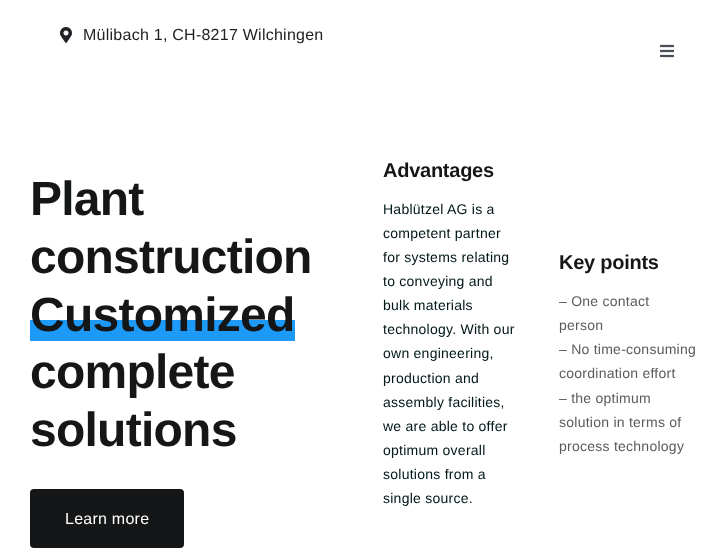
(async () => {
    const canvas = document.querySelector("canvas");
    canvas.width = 725;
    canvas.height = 557;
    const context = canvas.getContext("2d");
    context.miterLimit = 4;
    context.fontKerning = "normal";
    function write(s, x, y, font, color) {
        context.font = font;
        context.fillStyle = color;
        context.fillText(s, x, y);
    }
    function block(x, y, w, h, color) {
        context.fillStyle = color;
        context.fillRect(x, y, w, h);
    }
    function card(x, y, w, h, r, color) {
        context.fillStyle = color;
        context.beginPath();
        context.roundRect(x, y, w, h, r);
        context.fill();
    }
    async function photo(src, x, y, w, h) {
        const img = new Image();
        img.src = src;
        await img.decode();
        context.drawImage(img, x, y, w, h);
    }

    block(0, 0, 725, 557, "rgb(255, 255, 255)");
    await photo("media/1.png", 60, 27, 12, 16);
    context.letterSpacing = "0.25px";
    write("Mülibach 1, CH-8217 Wilchingen", 83, 40, "16px Liberation Sans", "rgb(33, 35, 38)");
    await photo("media/2.png", 660, 44, 14, 14);
    context.letterSpacing = "-0.75px";
    write("Plant", 30, 215, "bold 48px Liberation Sans", "rgb(20, 22, 23)");
    write("construction", 30, 273, "bold 48px Liberation Sans", "rgb(20, 22, 23)");
    block(30, 320, 265, 21, "rgb(29, 153, 247)");
    write("Customized", 30, 331, "bold 48px Liberation Sans", "rgb(20, 22, 23)");
    write("complete", 30, 388, "bold 48px Liberation Sans", "rgb(20, 22, 23)");
    write("solutions", 30, 446, "bold 48px Liberation Sans", "rgb(20, 22, 23)");
    card(30, 489, 154, 59, 4, "rgb(20, 22, 23)");
    context.letterSpacing = "0.25px";
    write("Learn more", 65, 524, "16px Liberation Sans", "rgb(255, 255, 255)");
    context.letterSpacing = "-0.25px";
    write("Advantages", 383, 177, "bold 20px Liberation Sans", "rgb(20, 22, 23)");
    context.letterSpacing = "0.25px";
    write("Hablützel AG is a", 383, 214, "14px Liberation Sans", "rgb(0, 21, 22)");
    write("competent partner", 383, 238, "14px Liberation Sans", "rgb(0, 21, 22)");
    write("for systems relating", 383, 262, "14px Liberation Sans", "rgb(0, 21, 22)");
    write("to conveying and", 383, 286, "14px Liberation Sans", "rgb(0, 21, 22)");
    write("bulk materials", 383, 310, "14px Liberation Sans", "rgb(0, 21, 22)");
    write("technology. With our", 383, 334, "14px Liberation Sans", "rgb(0, 21, 22)");
    write("own engineering,", 383, 358, "14px Liberation Sans", "rgb(0, 21, 22)");
    write("production and", 383, 383, "14px Liberation Sans", "rgb(0, 21, 22)");
    write("assembly facilities,", 383, 407, "14px Liberation Sans", "rgb(0, 21, 22)");
    write("we are able to offer", 383, 431, "14px Liberation Sans", "rgb(0, 21, 22)");
    write("optimum overall", 383, 455, "14px Liberation Sans", "rgb(0, 21, 22)");
    write("solutions from a", 383, 479, "14px Liberation Sans", "rgb(0, 21, 22)");
    write("single source.", 383, 503, "14px Liberation Sans", "rgb(0, 21, 22)");
    context.letterSpacing = "-0.25px";
    write("Key points", 559, 269, "bold 20px Liberation Sans", "rgb(20, 22, 23)");
    context.letterSpacing = "0.25px";
    write("– One contact", 559, 306, "14px Liberation Sans", "rgb(90, 91, 92)");
    write("person", 559, 330, "14px Liberation Sans", "rgb(90, 91, 92)");
    write("– No time-consuming", 559, 354, "14px Liberation Sans", "rgb(90, 91, 92)");
    write("coordination effort", 559, 378, "14px Liberation Sans", "rgb(90, 91, 92)");
    write("– the optimum", 559, 403, "14px Liberation Sans", "rgb(90, 91, 92)");
    write("solution in terms of", 559, 427, "14px Liberation Sans", "rgb(90, 91, 92)");
    write("process technology", 559, 451, "14px Liberation Sans", "rgb(90, 91, 92)");
})();
